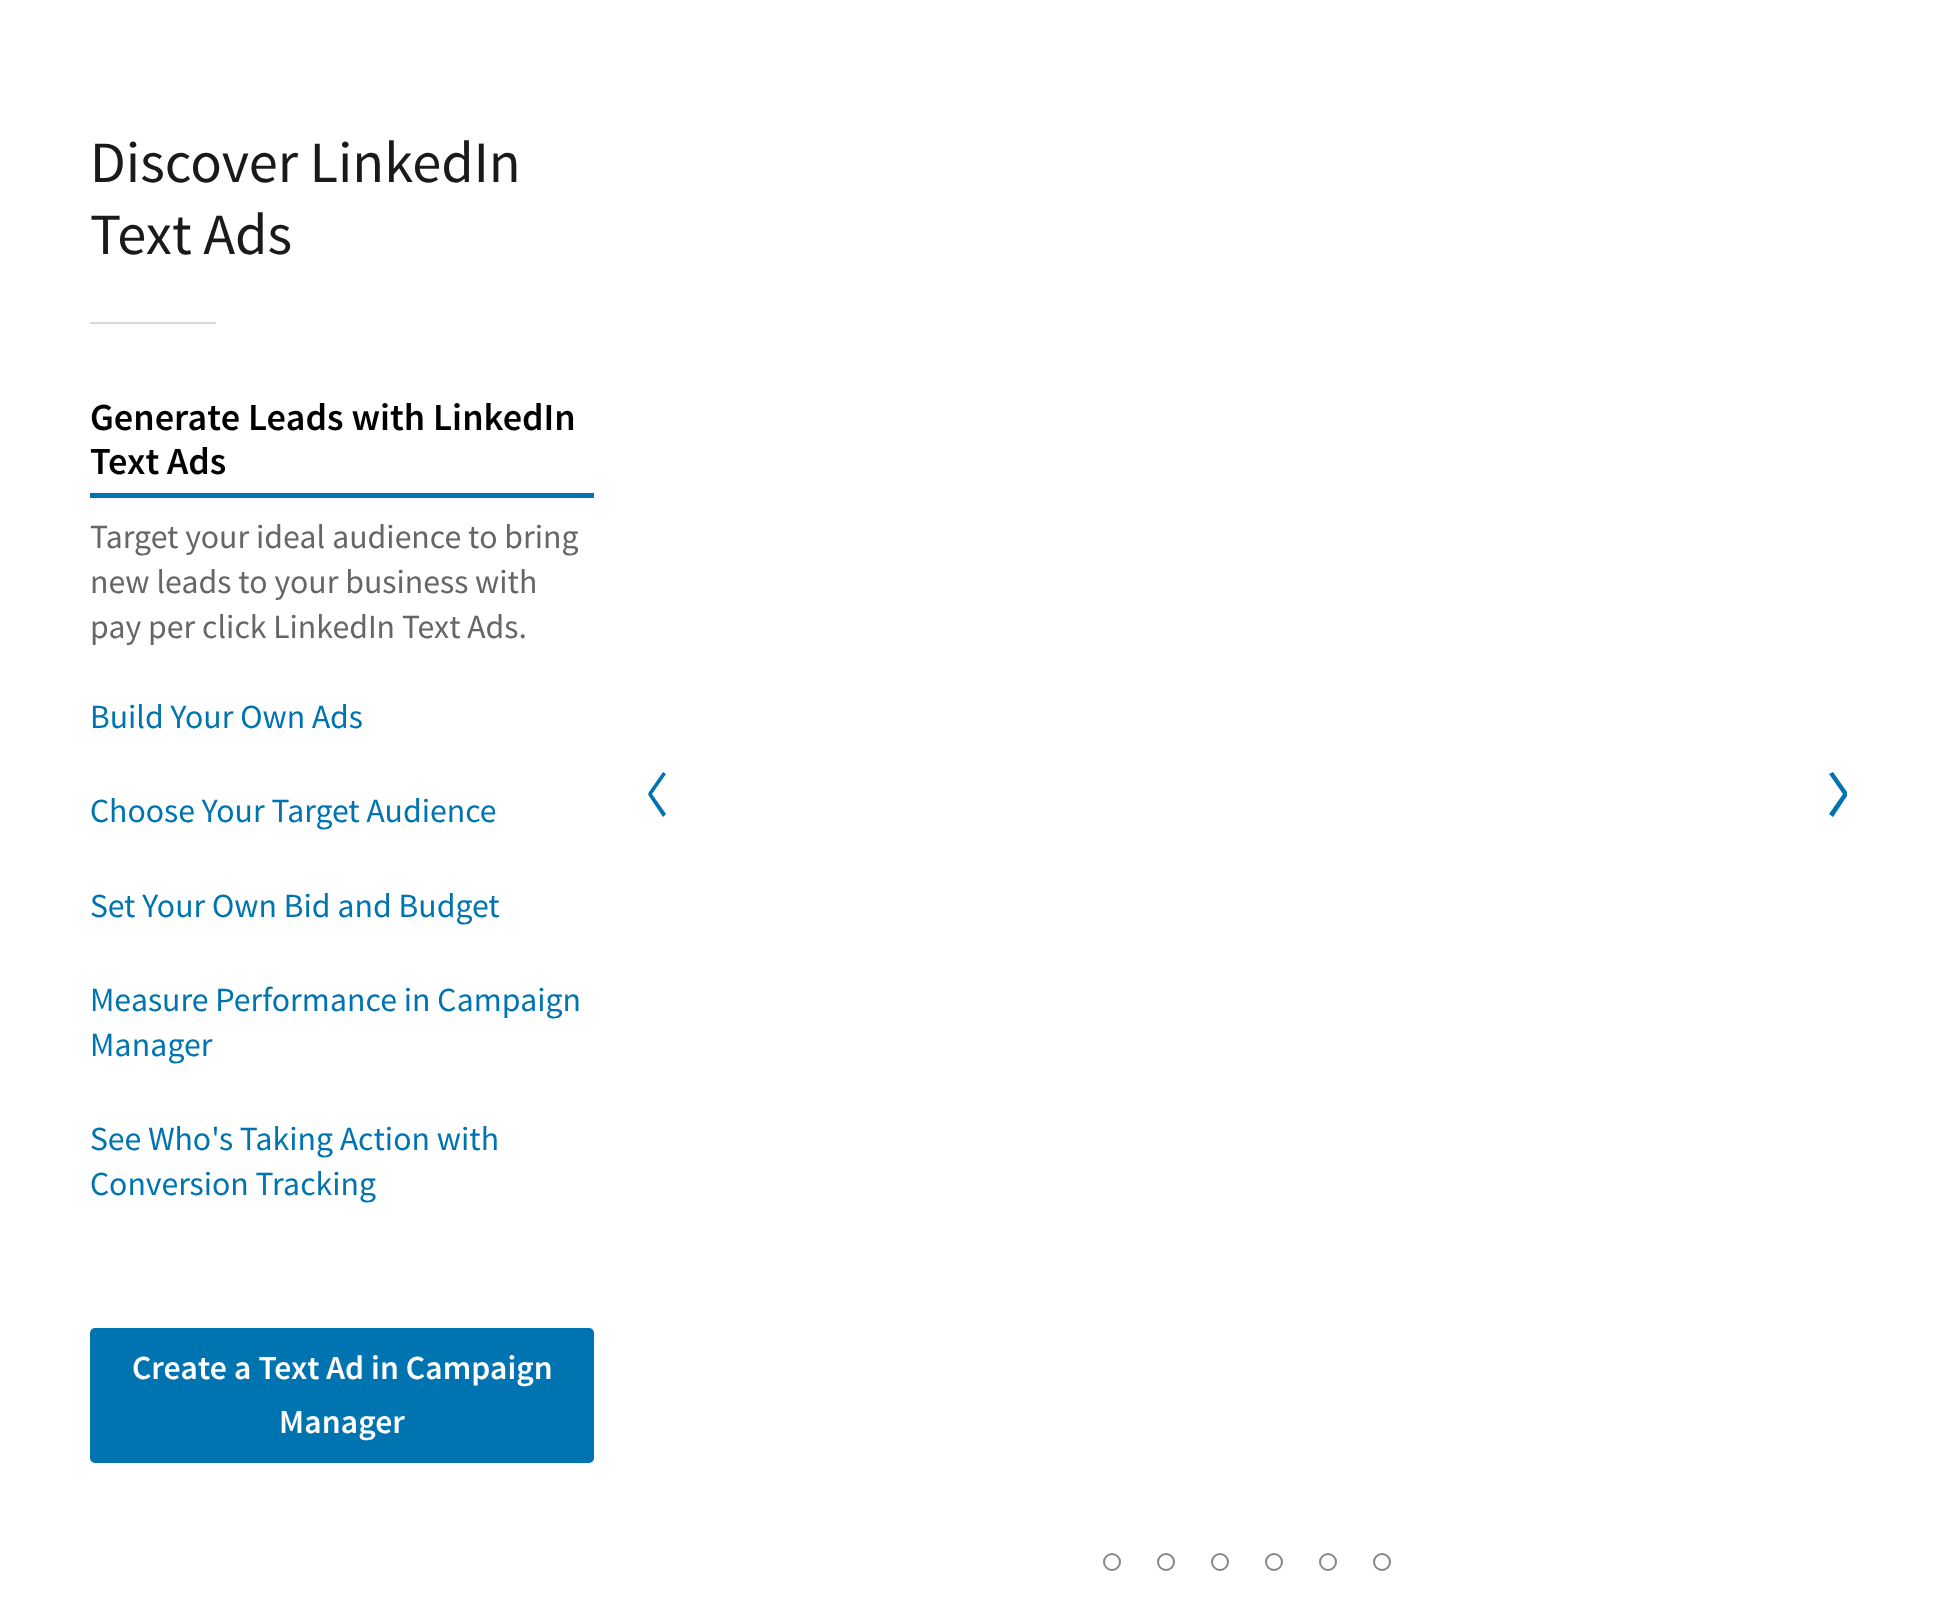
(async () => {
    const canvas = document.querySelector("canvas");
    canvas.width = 1944;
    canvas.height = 1617;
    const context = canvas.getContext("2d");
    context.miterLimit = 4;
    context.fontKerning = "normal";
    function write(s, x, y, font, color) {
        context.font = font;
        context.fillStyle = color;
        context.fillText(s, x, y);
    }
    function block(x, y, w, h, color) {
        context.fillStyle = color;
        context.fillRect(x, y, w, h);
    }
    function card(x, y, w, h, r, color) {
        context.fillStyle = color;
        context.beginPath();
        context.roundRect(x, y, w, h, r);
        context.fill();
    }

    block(0, 0, 1944, 1617, "rgb(255, 255, 255)");
    write("Discover LinkedIn", 90, 182, "58.5px Source Sans Pro", "rgb(26, 26, 26)");
    write("Text Ads", 90, 254, "58.5px Source Sans Pro", "rgb(26, 26, 26)");
    block(90, 322, 126, 2, "rgb(217, 217, 217)");
    write("Generate Leads with LinkedIn", 90, 430, "600 38.25px Source Sans Pro", "rgb(0, 0, 0)");
    write("Text Ads", 90, 474, "600 38.25px Source Sans Pro", "rgb(0, 0, 0)");
    block(90, 493, 504, 5, "rgb(0, 115, 177)");
    write("Target your ideal audience to bring", 90, 548, "33.75px Source Sans Pro", "rgb(102, 102, 102)");
    write("new leads to your business with", 90, 593, "33.75px Source Sans Pro", "rgb(102, 102, 102)");
    write("pay per click LinkedIn Text Ads.", 90, 638, "33.75px Source Sans Pro", "rgb(102, 102, 102)");
    write("Build Your Own Ads", 90, 728, "33.75px Source Sans Pro", "rgb(0, 115, 177)");
    write("Choose Your Target Audience", 90, 822, "33.75px Source Sans Pro", "rgb(0, 115, 177)");
    write("Set Your Own Bid and Budget", 90, 917, "33.75px Source Sans Pro", "rgb(0, 115, 177)");
    write("Measure Performance in Campaign", 90, 1011, "33.75px Source Sans Pro", "rgb(0, 115, 177)");
    write("Manager", 90, 1056, "33.75px Source Sans Pro", "rgb(0, 115, 177)");
    write("See Who's Taking Action with", 90, 1150, "33.75px Source Sans Pro", "rgb(0, 115, 177)");
    write("Conversion Tracking", 90, 1195, "33.75px Source Sans Pro", "rgb(0, 115, 177)");
    card(90, 1328, 504, 135, 5, "rgb(0, 115, 177)");
    write("Create a Text Ad in Campaign", 132, 1379, "600 33.75px Source Sans Pro", "rgb(255, 255, 255)");
    write("Manager", 279, 1433, "600 33.75px Source Sans Pro", "rgb(255, 255, 255)");
    context.fillStyle = "rgb(0, 115, 177)";
    context.beginPath();
    context.moveTo(652, 794);
    context.lineTo(666, 814);
    context.lineTo(663, 817);
    context.lineTo(649, 796);
    context.bezierCurveTo(648, 795, 648, 794, 649, 792);
    context.lineTo(663, 772);
    context.lineTo(666, 774);
    context.closePath();
    context.fill();
    context.beginPath();
    context.moveTo(1843, 794);
    context.lineTo(1829, 774);
    context.lineTo(1833, 772);
    context.lineTo(1847, 792);
    context.bezierCurveTo(1847, 793, 1847, 795, 1847, 796);
    context.lineTo(1833, 817);
    context.lineTo(1829, 814);
    context.closePath();
    context.fill();
    context.beginPath();
    context.arc(1112, 1562, 8, 0, Math.PI * 2);
    context.strokeStyle = "rgb(132, 135, 138)";
    context.lineWidth = 2;
    context.stroke();
    context.beginPath();
    context.arc(1166, 1562, 8, 0, Math.PI * 2);
    context.stroke();
    context.beginPath();
    context.arc(1220, 1562, 8, 0, Math.PI * 2);
    context.stroke();
    context.beginPath();
    context.arc(1274, 1562, 8, 0, Math.PI * 2);
    context.stroke();
    context.beginPath();
    context.arc(1328, 1562, 8, 0, Math.PI * 2);
    context.stroke();
    context.beginPath();
    context.arc(1382, 1562, 8, 0, Math.PI * 2);
    context.stroke();
})();
